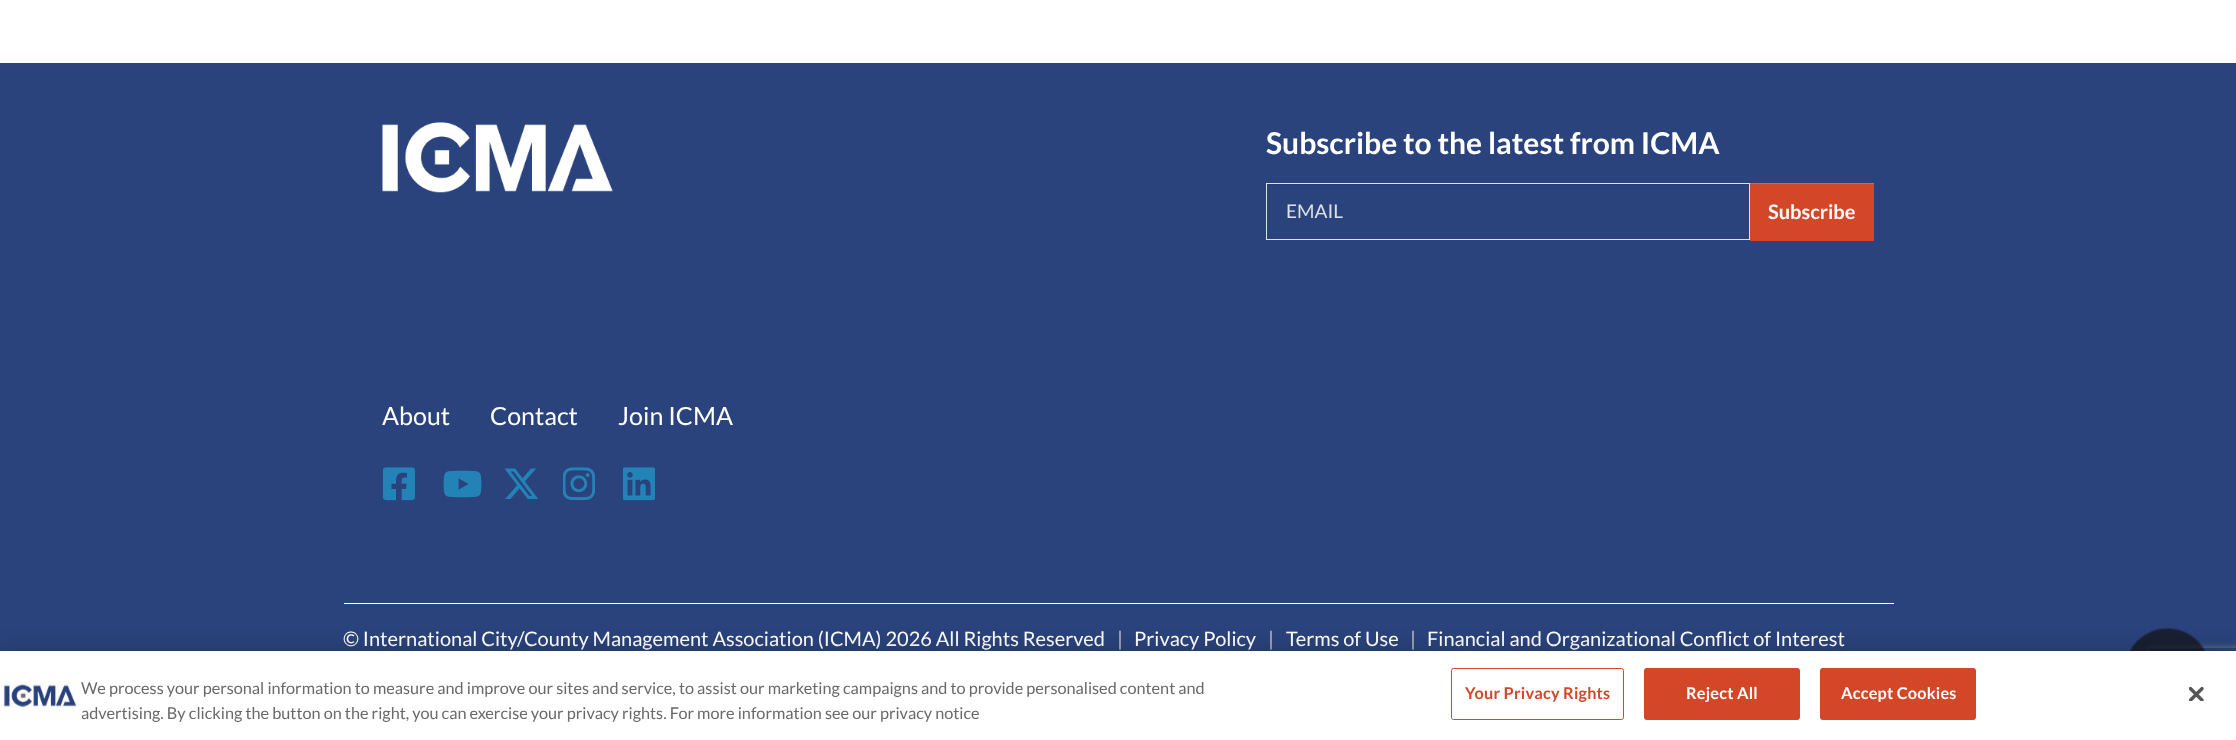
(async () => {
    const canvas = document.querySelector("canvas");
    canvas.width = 2236;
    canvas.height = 740;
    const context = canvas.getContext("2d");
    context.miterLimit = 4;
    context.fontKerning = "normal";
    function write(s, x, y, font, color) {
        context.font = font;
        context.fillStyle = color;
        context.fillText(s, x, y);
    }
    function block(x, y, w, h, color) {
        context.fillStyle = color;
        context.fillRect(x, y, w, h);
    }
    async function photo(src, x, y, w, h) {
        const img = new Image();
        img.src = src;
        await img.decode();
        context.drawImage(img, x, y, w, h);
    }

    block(0, 0, 2236, 740, "rgb(255, 255, 255)");
    block(0, 63, 2236, 588, "rgb(42, 67, 124)");
    write("Subscribe to the latest from ICMA", 1266, 154, "bold 30px Lato", "rgb(255, 255, 255)");
    block(1268, 184, 481, 1, "rgb(39, 62, 115)");
    context.strokeStyle = "rgb(222, 226, 230)";
    context.strokeRect(1266.5, 183.5, 483, 56);
    write("EMAIL", 1286, 218, "19px Lato", "rgb(222, 226, 230)");
    block(1750, 184, 124, 57, "rgb(211, 71, 40)");
    block(1750, 183, 124, 1, "rgb(218, 99, 72)");
    write("Subscribe", 1768, 219, "bold 20px Lato", "rgb(255, 255, 255)");
    await photo("media/1.png", 382, 122, 231, 71);
    write("About", 382, 425, "25px Lato", "rgb(255, 255, 255)");
    write("Contact", 490, 425, "25px Lato", "rgb(255, 255, 255)");
    write("Join ICMA", 618, 425, "25px Lato", "rgb(255, 255, 255)");
    await photo("media/2.png", 383, 467, 32, 34);
    await photo("media/3.png", 443, 470, 39, 28);
    await photo("media/4.png", 504, 468, 34, 31);
    await photo("media/5.png", 563, 467, 32, 34);
    await photo("media/6.png", 623, 467, 32, 34);
    block(344, 603, 1550, 1, "rgb(255, 255, 255)");
    write("© International City/County Management Association (ICMA) 2026 All Rights Reserved", 343, 646, "20px Lato", "rgb(255, 255, 255)");
    write("|", 1117, 646, "20px Lato", "rgb(192, 192, 192)");
    write("Privacy Policy", 1134, 646, "20px Lato", "rgb(255, 255, 255)");
    write("|", 1268, 646, "20px Lato", "rgb(192, 192, 192)");
    write("Terms of Use", 1286, 646, "20px Lato", "rgb(255, 255, 255)");
    write("|", 1410, 646, "20px Lato", "rgb(192, 192, 192)");
    write("Financial and Organizational Conflict of Interest", 1427, 646, "20px Lato", "rgb(255, 255, 255)");
    context.save();
    context.beginPath();
    context.moveTo(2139, 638);
    context.lineTo(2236, 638);
    context.lineTo(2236, 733);
    context.lineTo(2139, 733);
    context.closePath();
    context.moveTo(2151.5, 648);
    context.lineTo(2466.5, 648);
    context.bezierCurveTo(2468, 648, 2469, 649, 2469, 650.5);
    context.lineTo(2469, 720.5);
    context.bezierCurveTo(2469, 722, 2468, 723, 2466.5, 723);
    context.lineTo(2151.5, 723);
    context.bezierCurveTo(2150, 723, 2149, 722, 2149, 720.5);
    context.lineTo(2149, 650.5);
    context.bezierCurveTo(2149, 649, 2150, 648, 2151.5, 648);
    context.closePath();
    context.clip("evenodd");
    context.fillStyle = "rgb(128, 128, 128)";
    context.filter = "blur(3px)";
    context.beginPath();
    context.roundRect(2149, 648, 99, 75, 2.5);
    context.fill();
    context.filter = "none";
    context.restore();
    await photo("media/7.png", 2129, 627, 77, 24);
    context.fillStyle = "rgba(0, 0, 0, 0.2)";
    context.filter = "blur(11px)";
    context.beginPath();
    context.rect(0, 651, 2236, 89);
    context.fill();
    context.filter = "none";
    block(0, 651, 2236, 89, "rgb(255, 255, 255)");
    await photo("media/8.png", 0, 681, 79, 28);
    write("We process your personal information to measure and improve our sites and service, to assist our marketing campaigns and to provide personalised content and", 81, 694, "16.25px Lato", "rgb(105, 105, 105)");
    write("advertising. By clicking the button on the right, you can exercise your privacy rights. For more information see our privacy notice", 81, 719, "16.25px Lato", "rgb(105, 105, 105)");
    context.beginPath();
    context.roundRect(1451.5, 668.5, 172, 51, 2);
    context.strokeStyle = "rgb(211, 71, 40)";
    context.stroke();
    context.letterSpacing = "0.2px";
    write("Your Privacy Rights", 1465, 699, "bold 16.25px Lato", "rgb(211, 71, 40)");
    context.beginPath();
    context.roundRect(1644.5, 668.5, 155, 51, 2);
    context.fill();
    context.stroke();
    write("Reject All", 1686, 699, "bold 16.25px Lato", "rgb(255, 255, 255)");
    context.fillStyle = "rgb(211, 71, 40)";
    context.beginPath();
    context.roundRect(1820.5, 668.5, 155, 51, 2);
    context.fill();
    context.stroke();
    write("Accept Cookies", 1841, 699, "bold 16.25px Lato", "rgb(255, 255, 255)");
    await photo("media/9.png", 2189, 686, 15, 15);
})();
